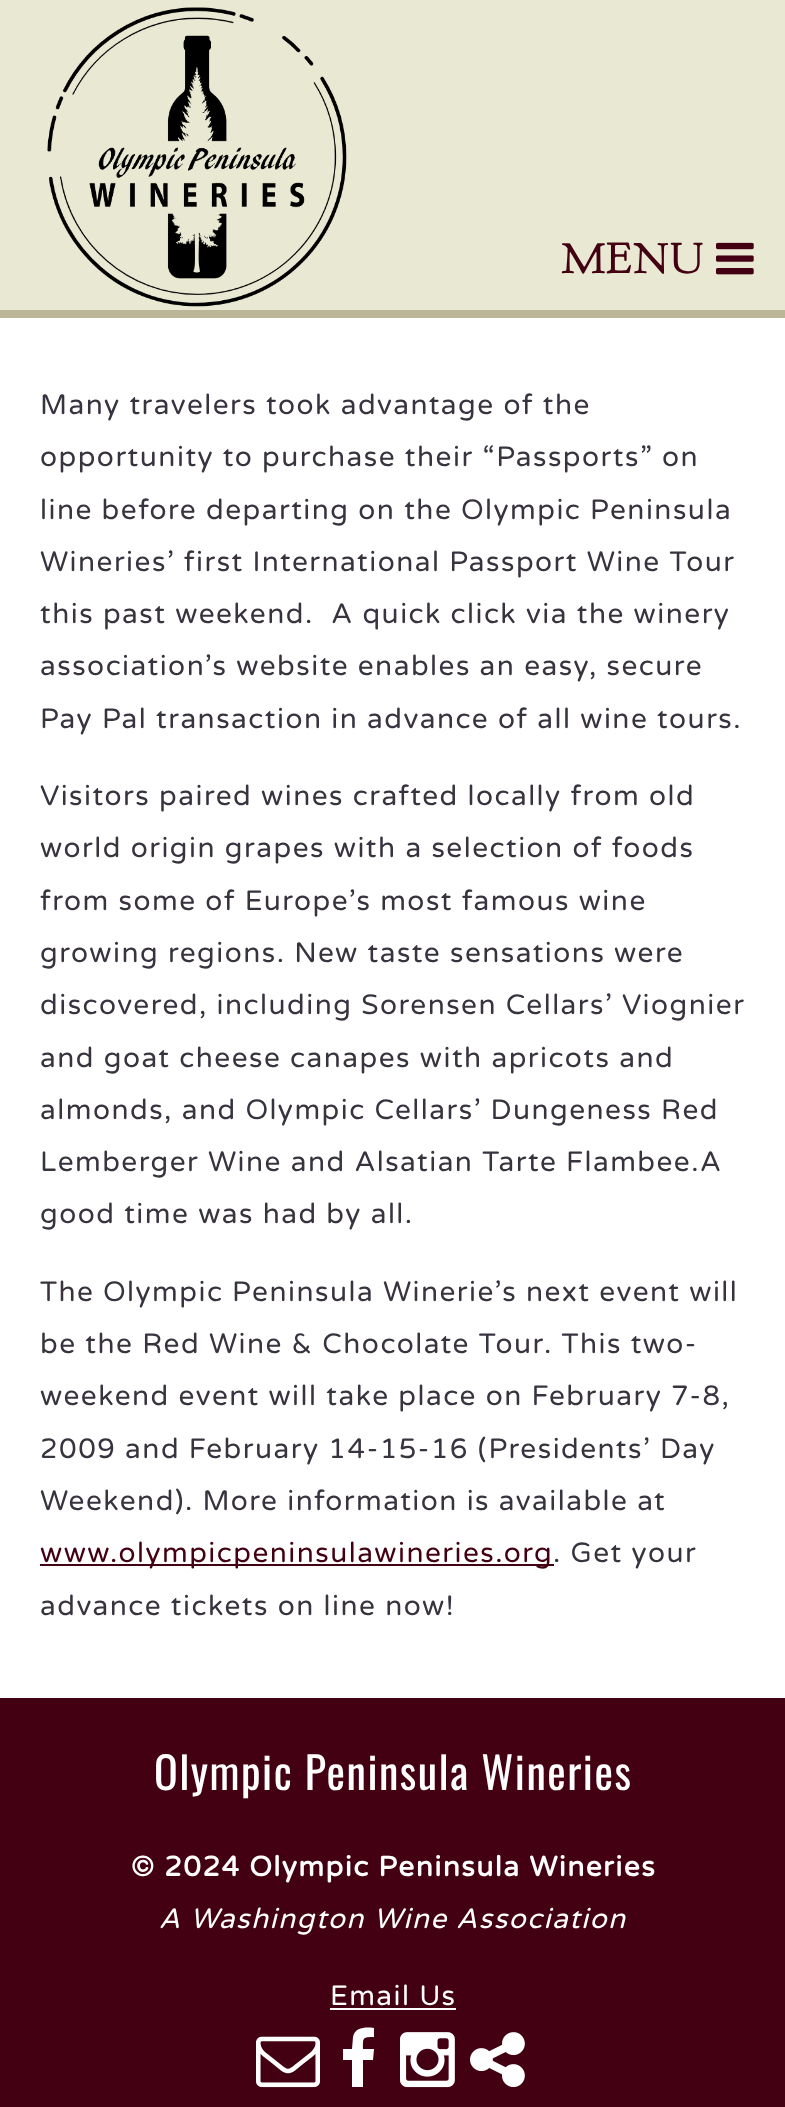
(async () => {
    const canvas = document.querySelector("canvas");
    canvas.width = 785;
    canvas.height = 2107;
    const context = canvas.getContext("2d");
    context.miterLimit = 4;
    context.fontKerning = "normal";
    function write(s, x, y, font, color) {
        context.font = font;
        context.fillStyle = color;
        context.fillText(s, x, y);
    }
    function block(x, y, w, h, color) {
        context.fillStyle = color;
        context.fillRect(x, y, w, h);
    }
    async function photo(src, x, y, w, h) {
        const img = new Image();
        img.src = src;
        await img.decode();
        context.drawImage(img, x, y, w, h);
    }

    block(0, 0, 785, 2107, "rgb(255, 255, 255)");
    block(0, 0, 785, 310, "rgb(233, 232, 211)");
    block(0, 310, 785, 8, "rgb(188, 182, 153)");
    await photo("media/1.png", 47, 7, 300, 300);
    context.letterSpacing = "1.5px";
    write("MENU", 561, 273, "44px 'Goudy Bookletter 1911'", "rgb(66, 0, 18)");
    await photo("media/2.png", 716, 242, 38, 33);
    write("Many travelers took advantage of the", 40, 414, "28px Varela Round", "rgb(56, 51, 63)");
    write("opportunity to purchase their “Passports” on", 40, 466, "28px Varela Round", "rgb(56, 51, 63)");
    write("line before departing on the Olympic Peninsula", 40, 519, "28px Varela Round", "rgb(56, 51, 63)");
    write("Wineries’ first International Passport Wine Tour", 40, 571, "28px Varela Round", "rgb(56, 51, 63)");
    write("this past weekend.  A quick click via the winery", 40, 623, "28px Varela Round", "rgb(56, 51, 63)");
    write("association’s website enables an easy, secure", 40, 675, "28px Varela Round", "rgb(56, 51, 63)");
    write("Pay Pal transaction in advance of all wine tours.", 40, 728, "28px Varela Round", "rgb(56, 51, 63)");
    write("Visitors paired wines crafted locally from old", 40, 805, "28px Varela Round", "rgb(56, 51, 63)");
    write("world origin grapes with a selection of foods", 40, 857, "28px Varela Round", "rgb(56, 51, 63)");
    write("from some of Europe’s most famous wine", 40, 910, "28px Varela Round", "rgb(56, 51, 63)");
    write("growing regions. New taste sensations were", 40, 962, "28px Varela Round", "rgb(56, 51, 63)");
    write("discovered, including Sorensen Cellars’ Viognier", 40, 1014, "28px Varela Round", "rgb(56, 51, 63)");
    write("and goat cheese canapes with apricots and", 40, 1067, "28px Varela Round", "rgb(56, 51, 63)");
    write("almonds, and Olympic Cellars’ Dungeness Red", 40, 1119, "28px Varela Round", "rgb(56, 51, 63)");
    write("Lemberger Wine and Alsatian Tarte Flambee.A", 40, 1171, "28px Varela Round", "rgb(56, 51, 63)");
    write("good time was had by all.", 40, 1223, "28px Varela Round", "rgb(56, 51, 63)");
    write("The Olympic Peninsula Winerie’s next event will", 40, 1301, "28px Varela Round", "rgb(56, 51, 63)");
    write("be the Red Wine & Chocolate Tour. This two-", 40, 1353, "28px Varela Round", "rgb(56, 51, 63)");
    write("weekend event will take place on February 7-8,", 40, 1405, "28px Varela Round", "rgb(56, 51, 63)");
    write("2009 and February 14-15-16 (Presidents’ Day", 40, 1458, "28px Varela Round", "rgb(56, 51, 63)");
    write("Weekend). More information is available at", 40, 1510, "28px Varela Round", "rgb(56, 51, 63)");
    block(40, 1564, 514, 2, "rgb(66, 0, 18)");
    write("www.olympicpeninsulawineries.org", 40, 1562, "28px Varela Round", "rgb(66, 0, 18)");
    write(". Get your", 553, 1562, "28px Varela Round", "rgb(56, 51, 63)");
    write("advance tickets on line now!", 40, 1615, "28px Varela Round", "rgb(56, 51, 63)");
    block(0, 1698, 785, 409, "rgb(66, 0, 18)");
    write("Olympic Peninsula Wineries", 154, 1790, "44px Oswald", "rgb(255, 255, 255)");
    write("© 2024 Olympic Peninsula Wineries", 131, 1876, "bold 28px Varela Round", "rgb(255, 255, 255)");
    write("A Washington Wine Association", 159, 1928, "italic 28px Varela Round", "rgb(255, 255, 255)");
    write("Email Us", 330, 2005, "28px Varela Round", "rgb(255, 255, 255)");
    block(330, 2008, 126, 2, "rgb(255, 255, 255)");
    await photo("media/3.png", 256, 2036, 64, 52);
    context.beginPath();
    context.moveTo(374, 2028);
    context.lineTo(374, 2037);
    context.bezierCurveTo(362, 2037, 363, 2038, 363, 2049);
    context.lineTo(374, 2049);
    context.lineTo(373, 2060);
    context.lineTo(363, 2060);
    context.lineTo(363, 2087);
    context.lineTo(352, 2087);
    context.lineTo(352, 2060);
    context.lineTo(343, 2060);
    context.lineTo(343, 2049);
    context.lineTo(352, 2049);
    context.lineTo(353, 2037);
    context.bezierCurveTo(355, 2027, 366, 2027, 374, 2028);
    context.closePath();
    context.fill();
    await photo("media/4.png", 400, 2032, 55, 56);
    await photo("media/5.png", 470, 2032, 55, 56);
})();
